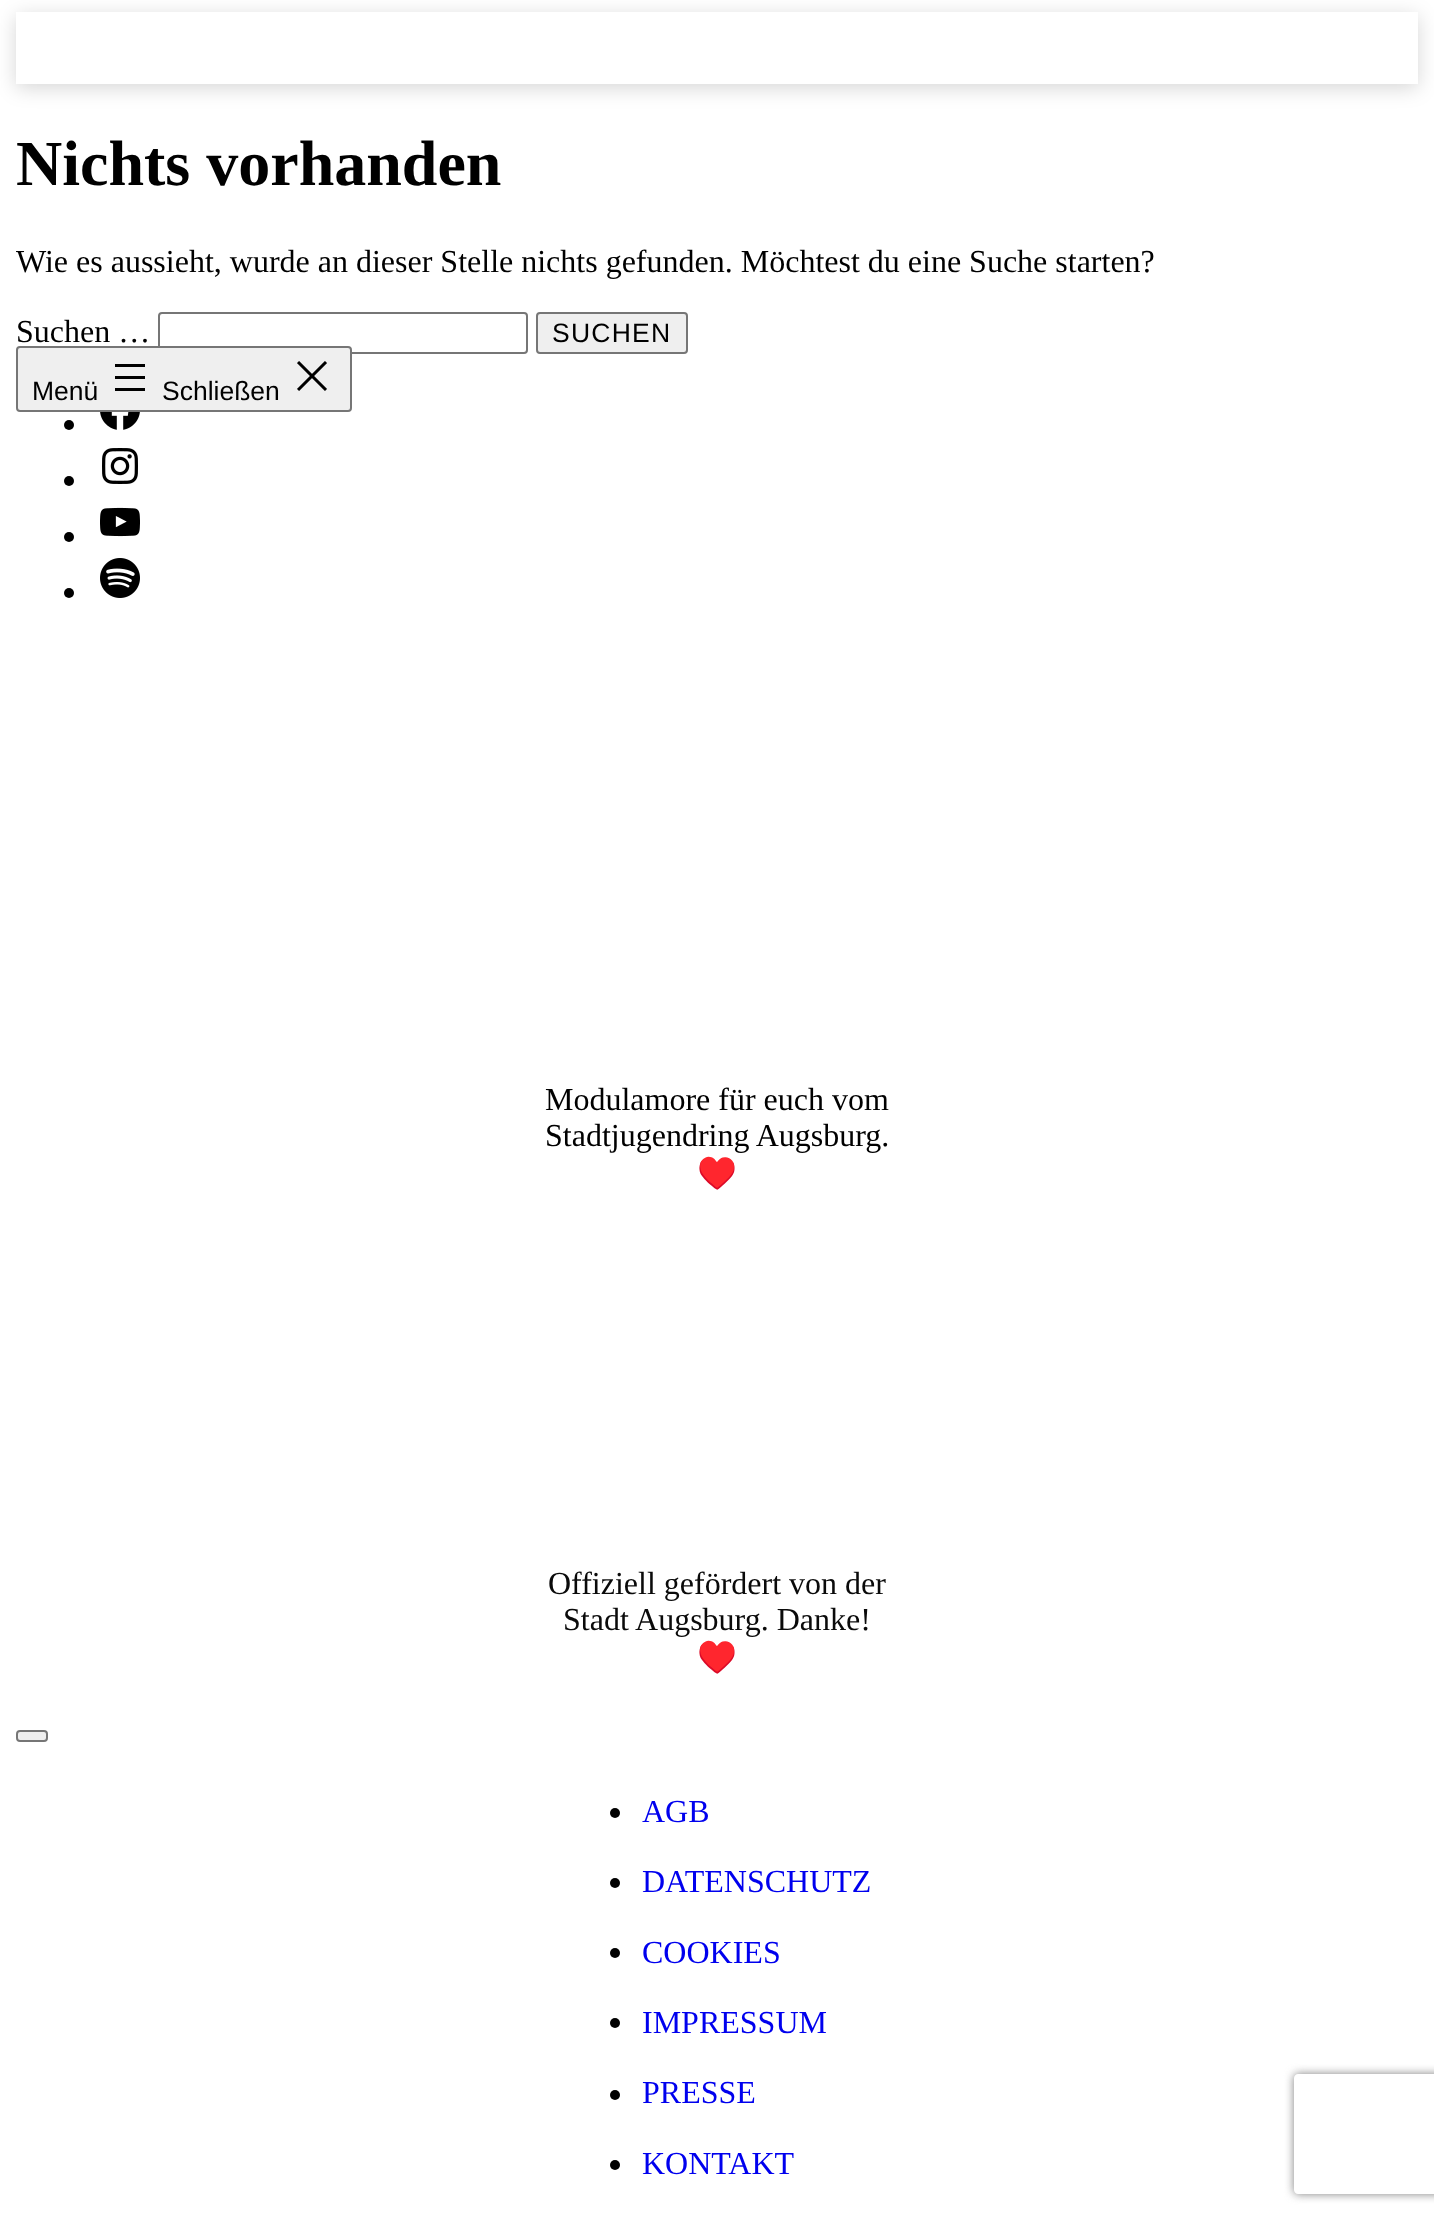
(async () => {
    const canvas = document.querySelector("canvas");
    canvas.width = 1434;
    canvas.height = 2221;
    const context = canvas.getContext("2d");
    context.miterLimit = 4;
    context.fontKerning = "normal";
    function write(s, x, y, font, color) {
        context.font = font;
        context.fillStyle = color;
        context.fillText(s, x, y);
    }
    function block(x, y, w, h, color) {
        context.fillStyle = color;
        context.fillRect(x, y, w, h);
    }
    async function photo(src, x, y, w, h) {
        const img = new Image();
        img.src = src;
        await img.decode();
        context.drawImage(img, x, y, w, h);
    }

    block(0, 0, 1434, 2221, "rgb(255, 255, 255)");
    write("Nichts vorhanden", 16, 185, "bold 64px Liberation Serif", "rgb(0, 0, 0)");
    write("Wie es aussieht, wurde an dieser Stelle nichts gefunden. Möchtest du eine Suche starten?", 16, 272, "32px Liberation Serif", "rgb(0, 0, 0)");
    write("Suchen …", 16, 342, "32px Liberation Serif", "rgb(0, 0, 0)");
    context.beginPath();
    context.roundRect(159, 313, 368, 40, 3);
    context.strokeStyle = "rgb(118, 118, 118)";
    context.lineWidth = 2;
    context.stroke();
    context.fillStyle = "rgb(239, 239, 239)";
    context.beginPath();
    context.roundRect(537, 313, 150, 40, 3);
    context.fill();
    context.stroke();
    context.letterSpacing = "1.25px";
    write("SUCHEN", 552, 342, "26.5px Liberation Sans", "rgb(0, 0, 0)");
    context.save();
    context.beginPath();
    context.moveTo(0, 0);
    context.lineTo(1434, 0);
    context.lineTo(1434, 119);
    context.lineTo(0, 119);
    context.closePath();
    context.moveTo(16, 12);
    context.lineTo(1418, 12);
    context.lineTo(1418, 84);
    context.lineTo(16, 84);
    context.closePath();
    context.clip("evenodd");
    context.fillStyle = "rgba(0, 0, 0, 0.16)";
    context.filter = "blur(10px)";
    context.beginPath();
    context.rect(16, 16, 1402, 72);
    context.fill();
    context.filter = "none";
    context.restore();
    context.fillStyle = "rgb(239, 239, 239)";
    context.beginPath();
    context.roundRect(17, 347, 334, 64, 3);
    context.fill();
    context.stroke();
    context.letterSpacing = "0px";
    write("Menü", 32, 400, "26.5px Liberation Sans", "rgb(0, 0, 0)");
    await photo("media/1.png", 115, 364, 30, 27);
    write("Schließen", 162, 400, "26.5px Liberation Sans", "rgb(0, 0, 0)");
    await photo("media/2.png", 297, 361, 30, 30);
    context.beginPath();
    context.arc(69, 425, 5, 0, Math.PI * 2);
    context.fill();
    await photo("media/3.png", 100, 412, 40, 18);
    context.beginPath();
    context.arc(69, 481, 5, 0, Math.PI * 2);
    context.fill();
    await photo("media/4.png", 102, 448, 36, 36);
    context.beginPath();
    context.arc(69, 537, 5, 0, Math.PI * 2);
    context.fill();
    await photo("media/5.png", 100, 507, 40, 30);
    context.beginPath();
    context.arc(69, 593, 5, 0, Math.PI * 2);
    context.fill();
    await photo("media/6.png", 100, 558, 40, 40);
    write("Modulamore für euch vom", 545, 1110, "32px Liberation Serif", "rgb(0, 0, 0)");
    write("Stadtjugendring Augsburg.", 545, 1146, "32px Liberation Serif", "rgb(0, 0, 0)");
    write("♥️", 697, 1184, "32px Noto Color Emoji", "rgb(10, 10, 10)");
    write("Offiziell gefördert von der", 548, 1594, "32px Liberation Serif", "rgb(10, 10, 10)");
    write("Stadt Augsburg. Danke!", 563, 1630, "32px Liberation Serif", "rgb(10, 10, 10)");
    write("♥️", 697, 1668, "32px Noto Color Emoji", "rgb(10, 10, 10)");
    context.fillStyle = "rgb(239, 239, 239)";
    context.beginPath();
    context.roundRect(17, 1731, 30, 10, 3);
    context.fill();
    context.stroke();
    context.fillStyle = "rgb(0, 0, 0)";
    context.beginPath();
    context.arc(615, 1813, 5, 0, Math.PI * 2);
    context.fill();
    write("AGB", 642, 1822, "32px Liberation Serif", "rgb(0, 0, 238)");
    context.fillStyle = "rgb(0, 0, 0)";
    context.beginPath();
    context.arc(615, 1883, 5, 0, Math.PI * 2);
    context.fill();
    write("DATENSCHUTZ", 642, 1892, "32px Liberation Serif", "rgb(0, 0, 238)");
    context.fillStyle = "rgb(0, 0, 0)";
    context.beginPath();
    context.arc(615, 1953, 5, 0, Math.PI * 2);
    context.fill();
    write("COOKIES", 642, 1963, "32px Liberation Serif", "rgb(0, 0, 238)");
    context.fillStyle = "rgb(0, 0, 0)";
    context.beginPath();
    context.arc(615, 2023, 5, 0, Math.PI * 2);
    context.fill();
    write("IMPRESSUM", 642, 2033, "32px Liberation Serif", "rgb(0, 0, 238)");
    context.fillStyle = "rgb(0, 0, 0)";
    context.beginPath();
    context.arc(615, 2095, 5, 0, Math.PI * 2);
    context.fill();
    write("PRESSE", 642, 2103, "32px Liberation Serif", "rgb(0, 0, 238)");
    context.fillStyle = "rgb(0, 0, 0)";
    context.beginPath();
    context.arc(615, 2165, 5, 0, Math.PI * 2);
    context.fill();
    write("KONTAKT", 642, 2174, "32px Liberation Serif", "rgb(0, 0, 238)");
    context.save();
    context.beginPath();
    context.moveTo(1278, 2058);
    context.lineTo(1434, 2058);
    context.lineTo(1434, 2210);
    context.lineTo(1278, 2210);
    context.closePath();
    context.moveTo(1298, 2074);
    context.lineTo(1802, 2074);
    context.bezierCurveTo(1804, 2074, 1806, 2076, 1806, 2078);
    context.lineTo(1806, 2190);
    context.bezierCurveTo(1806, 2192, 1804, 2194, 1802, 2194);
    context.lineTo(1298, 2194);
    context.bezierCurveTo(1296, 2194, 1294, 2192, 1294, 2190);
    context.lineTo(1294, 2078);
    context.bezierCurveTo(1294, 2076, 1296, 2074, 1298, 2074);
    context.closePath();
    context.clip("evenodd");
    context.fillStyle = "rgb(128, 128, 128)";
    context.filter = "blur(5px)";
    context.beginPath();
    context.roundRect(1294, 2074, 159, 120, 4);
    context.fill();
    context.filter = "none";
    context.restore();
})();
